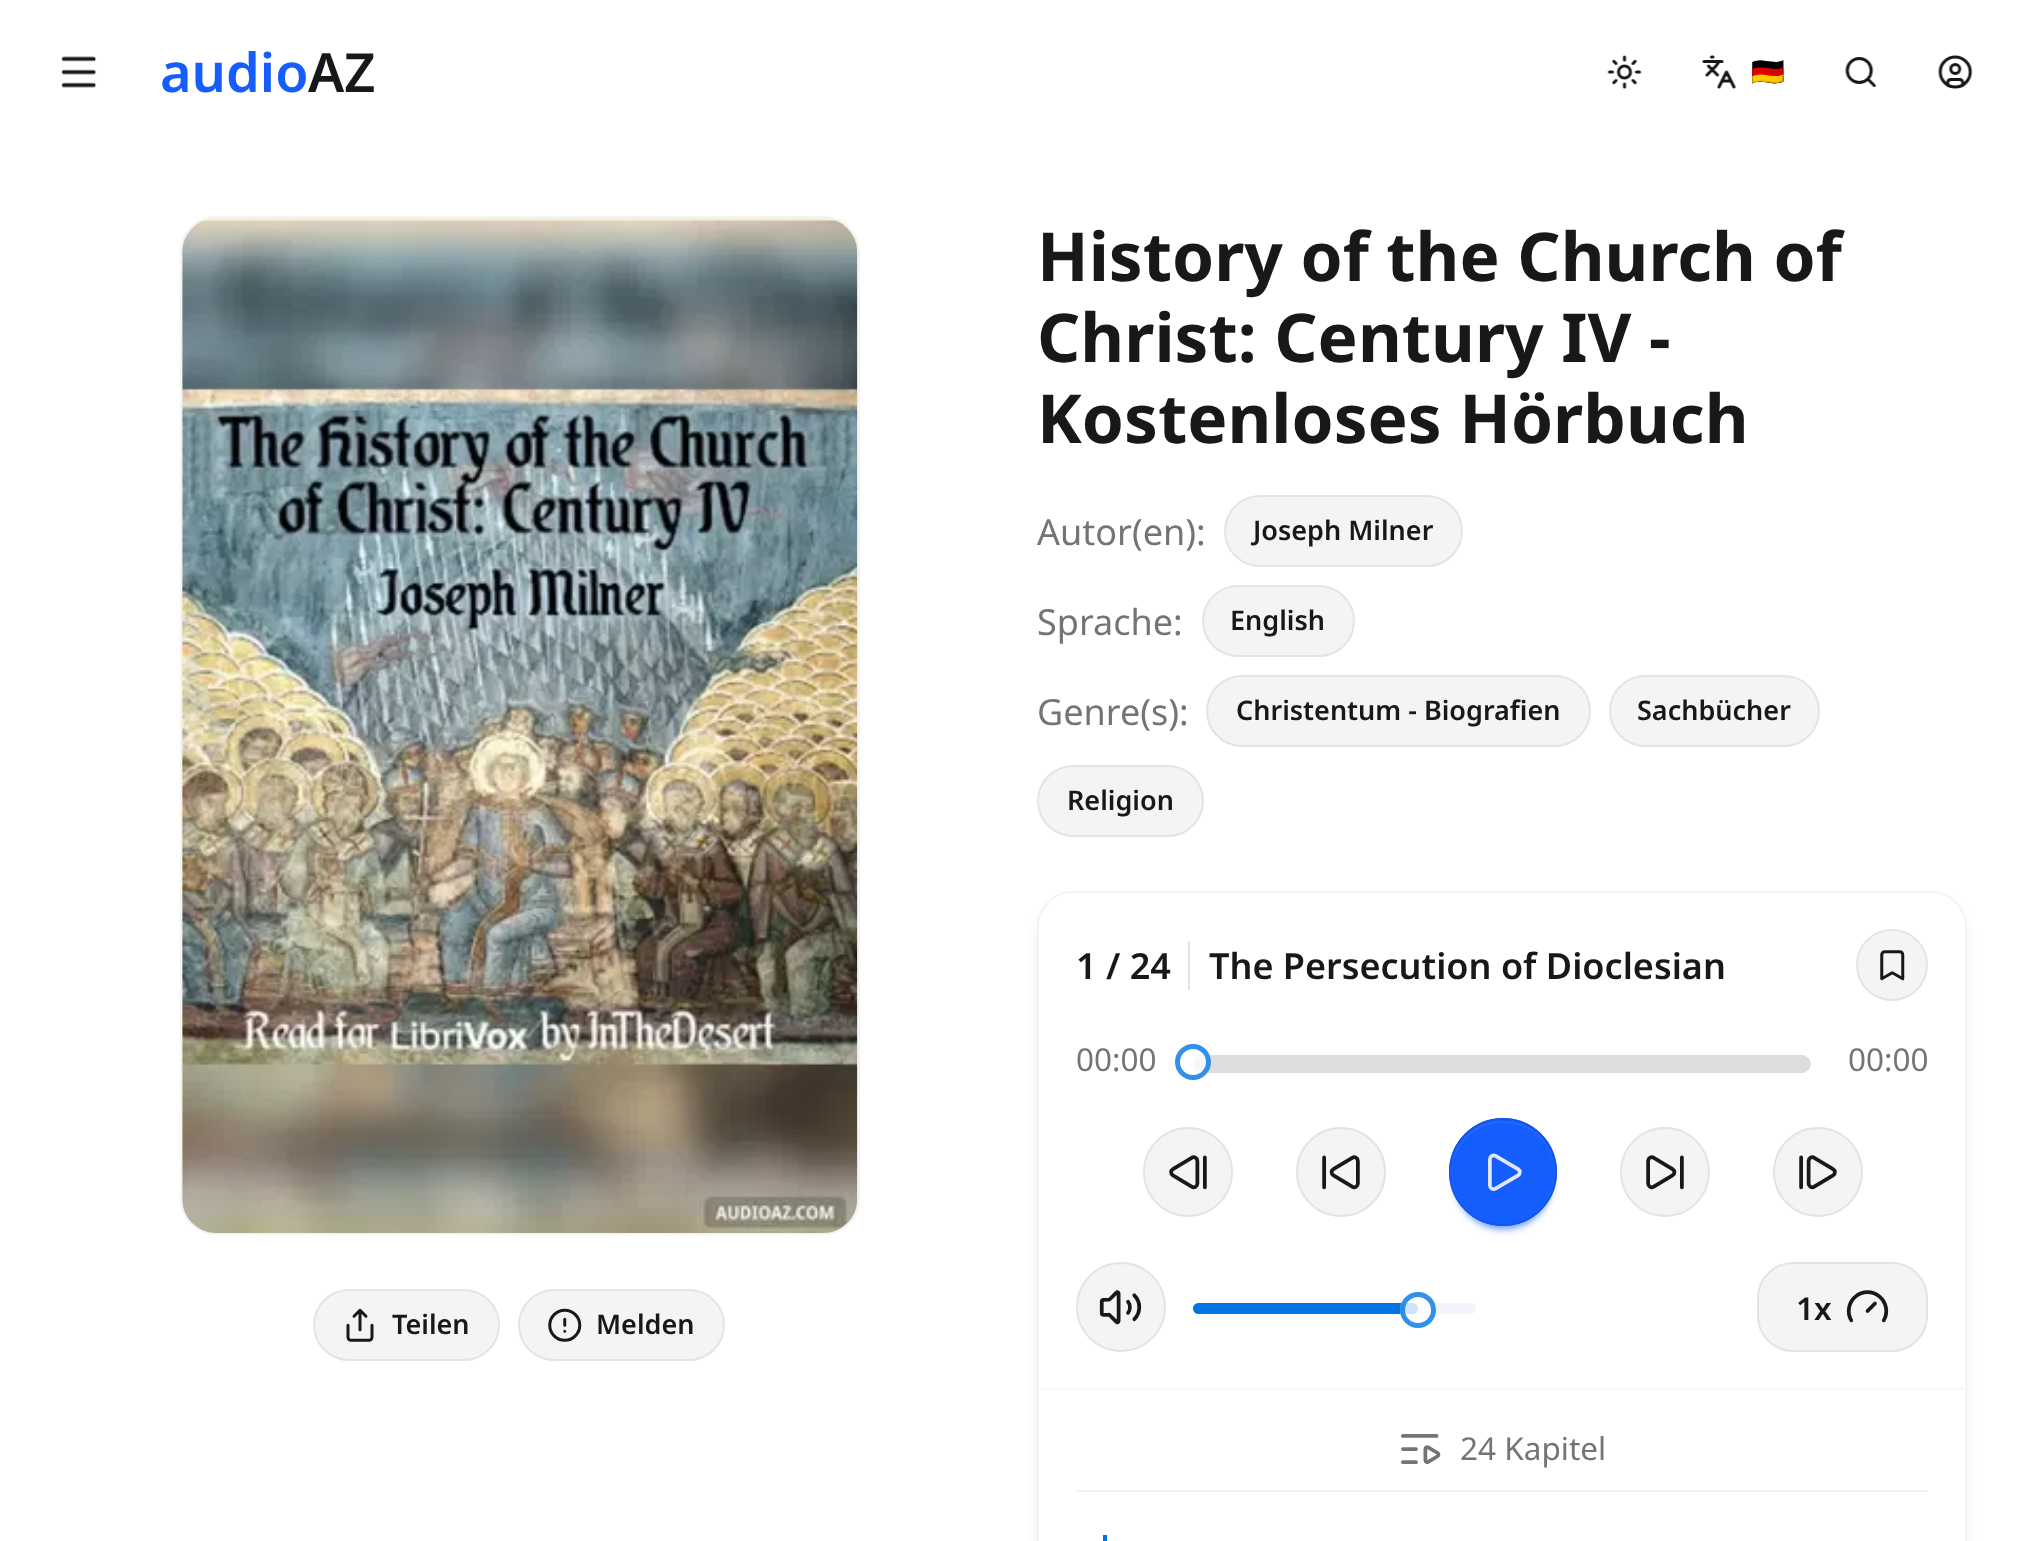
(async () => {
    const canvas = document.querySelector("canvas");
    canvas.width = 2020;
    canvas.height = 1541;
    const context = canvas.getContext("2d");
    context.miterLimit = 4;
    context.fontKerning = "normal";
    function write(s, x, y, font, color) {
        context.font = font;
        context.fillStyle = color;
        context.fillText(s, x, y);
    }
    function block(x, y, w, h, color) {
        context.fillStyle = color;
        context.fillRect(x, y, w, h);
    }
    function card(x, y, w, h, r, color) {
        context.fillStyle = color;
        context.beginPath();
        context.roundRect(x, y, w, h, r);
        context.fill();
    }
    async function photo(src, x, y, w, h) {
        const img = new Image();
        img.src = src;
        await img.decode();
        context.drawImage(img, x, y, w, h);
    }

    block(0, 0, 2020, 1541, "rgb(255, 255, 255)");
    await photo("media/1.png", 61, 56, 36, 32);
    write("audio", 160, 92, "600 54px Noto Sans", "rgb(21, 93, 252)");
    write("AZ", 308, 92, "600 54px Noto Sans", "rgb(24, 24, 27)");
    await photo("media/2.png", 1607, 55, 35, 34);
    await photo("media/3.png", 1702, 55, 34, 34);
    write("🇩🇪", 1751, 81, "27px Noto Color Emoji", "rgb(24, 24, 27)");
    await photo("media/4.png", 1845, 57, 32, 30);
    await photo("media/5.png", 1938, 55, 35, 34);
    context.fillStyle = "rgb(241, 240, 222)";
    context.beginPath();
    context.roundRect(181, 217, 678, 1017, 35);
    context.fill();
    context.strokeStyle = "rgb(244, 244, 245)";
    context.lineWidth = 2;
    context.stroke();
    await photo("media/6.png", 182, 220, 676, 1013);
    context.fillStyle = "rgb(244, 244, 245)";
    context.beginPath();
    context.roundRect(314, 1290, 185, 70, 35);
    context.fill();
    context.strokeStyle = "rgb(228, 228, 229)";
    context.stroke();
    await photo("media/7.png", 346, 1308, 28, 34);
    write("Teilen", 392, 1334, "600 27px Noto Sans", "rgb(24, 24, 27)");
    context.fillStyle = "rgb(244, 244, 245)";
    context.beginPath();
    context.roundRect(519, 1290, 205, 70, 35);
    context.fill();
    context.stroke();
    await photo("media/8.png", 548, 1308, 34, 34);
    write("Melden", 596, 1334, "600 27px Noto Sans", "rgb(24, 24, 27)");
    write("History of the Church of", 1037, 281, "bold 67.5px Noto Sans", "rgb(24, 24, 27)");
    write("Christ: Century IV -", 1037, 362, "bold 67.5px Noto Sans", "rgb(24, 24, 27)");
    write("Kostenloses Hörbuch", 1037, 443, "bold 67.5px Noto Sans", "rgb(24, 24, 27)");
    write("Autor(en):", 1037, 545, "36px Noto Sans", "rgb(116, 116, 118)");
    context.fillStyle = "rgb(244, 244, 245)";
    context.beginPath();
    context.roundRect(1225, 496, 237, 70, 35);
    context.fill();
    context.stroke();
    write("Joseph Milner", 1253, 540, "600 27px Noto Sans", "rgb(24, 24, 27)");
    write("Sprache:", 1037, 635, "36px Noto Sans", "rgb(116, 116, 118)");
    context.fillStyle = "rgb(244, 244, 245)";
    context.beginPath();
    context.roundRect(1203, 586, 151, 70, 35);
    context.fill();
    context.stroke();
    write("English", 1230, 630, "600 27px Noto Sans", "rgb(24, 24, 27)");
    write("Genre(s):", 1037, 725, "36px Noto Sans", "rgb(116, 116, 118)");
    context.fillStyle = "rgb(244, 244, 245)";
    context.beginPath();
    context.roundRect(1207, 676, 383, 70, 35);
    context.fill();
    context.stroke();
    write("Christentum - Biografien", 1236, 720, "600 27px Noto Sans", "rgb(24, 24, 27)");
    context.fillStyle = "rgb(244, 244, 245)";
    context.beginPath();
    context.roundRect(1610, 676, 209, 70, 35);
    context.fill();
    context.stroke();
    write("Sachbücher", 1637, 720, "600 27px Noto Sans", "rgb(24, 24, 27)");
    context.fillStyle = "rgb(244, 244, 245)";
    context.beginPath();
    context.roundRect(1038, 766, 165, 70, 35);
    context.fill();
    context.stroke();
    write("Religion", 1067, 810, "600 27px Noto Sans", "rgb(24, 24, 27)");
    context.fillStyle = "rgba(0, 0, 0, 0.1)";
    context.filter = "blur(7px)";
    context.beginPath();
    context.roundRect(1040, 902, 924, 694, 34);
    context.fill();
    context.filter = "none";
    context.fillStyle = "rgb(255, 255, 255)";
    context.beginPath();
    context.roundRect(1038, 892, 928, 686, 35);
    context.fill();
    context.strokeStyle = "rgb(244, 244, 245)";
    context.stroke();
    write("1 / 24", 1076, 979, "600 36px Noto Sans", "rgb(24, 24, 27)");
    block(1188, 941, 2, 49, "rgb(228, 228, 231)");
    write("The Persecution of Dioclesian", 1209, 979, "600 36px Noto Sans", "rgb(24, 24, 27)");
    context.fillStyle = "rgb(244, 244, 245)";
    context.beginPath();
    context.arc(1892, 965, 35, 0, Math.PI * 2);
    context.fill();
    context.strokeStyle = "rgb(228, 228, 229)";
    context.stroke();
    await photo("media/9.png", 1880, 950, 25, 31);
    write("00:00", 1076, 1071, "31.5px Noto Sans", "rgb(116, 116, 118)");
    card(1193, 1055, 618, 18, 9, "rgb(221, 221, 221)");
    context.fillStyle = "rgba(255, 255, 255, 0.8)";
    context.beginPath();
    context.arc(1193, 1062, 18, 0, Math.PI * 2);
    context.fill();
    context.beginPath();
    context.arc(1193, 1062, 15.5, 0, Math.PI * 2);
    context.strokeStyle = "rgba(0, 116, 228, 0.8)";
    context.lineWidth = 5;
    context.stroke();
    write("00:00", 1848, 1071, "31.5px Noto Sans", "rgb(116, 116, 118)");
    context.fillStyle = "rgb(244, 244, 245)";
    context.beginPath();
    context.arc(1188, 1172, 44, 0, Math.PI * 2);
    context.fill();
    context.strokeStyle = "rgb(228, 228, 229)";
    context.lineWidth = 2;
    context.stroke();
    await photo("media/10.png", 1169, 1155, 38, 35);
    context.beginPath();
    context.arc(1341, 1172, 44, 0, Math.PI * 2);
    context.fill();
    context.stroke();
    await photo("media/11.png", 1322, 1155, 38, 35);
    context.fillStyle = "rgba(21, 93, 252, 0.3)";
    context.filter = "blur(3.5px)";
    context.beginPath();
    context.roundRect(1454, 1132, 99, 99, 49.5);
    context.fill();
    context.filter = "none";
    context.filter = "blur(2px)";
    context.beginPath();
    context.roundRect(1454, 1130, 99, 99, 49.5);
    context.fill();
    context.filter = "none";
    context.fillStyle = "rgb(21, 93, 252)";
    context.beginPath();
    context.arc(1503, 1172, 54, 0, Math.PI * 2);
    context.fill();
    context.fillStyle = "rgb(35, 103, 252)";
    context.beginPath();
    context.moveTo(1502, 1121);
    context.bezierCurveTo(1447, 1121, 1431, 1198, 1482, 1220);
    context.bezierCurveTo(1491, 1223, 1494, 1223, 1502, 1224);
    context.bezierCurveTo(1509, 1225, 1518, 1222, 1524, 1220);
    context.bezierCurveTo(1575, 1198, 1559, 1121, 1504, 1121);
    context.closePath();
    context.moveTo(1503, 1123);
    context.bezierCurveTo(1531, 1123, 1554, 1145, 1554, 1173);
    context.bezierCurveTo(1554, 1201, 1531, 1224, 1503, 1224);
    context.bezierCurveTo(1475, 1224, 1452, 1201, 1452, 1173);
    context.bezierCurveTo(1452, 1145, 1475, 1123, 1503, 1123);
    context.closePath();
    context.fill("evenodd");
    context.beginPath();
    context.arc(1503, 1172, 53, 0, Math.PI * 2);
    context.strokeStyle = "rgb(19, 86, 235)";
    context.stroke();
    await photo("media/12.png", 1488, 1153, 34, 38);
    context.fillStyle = "rgb(244, 244, 245)";
    context.beginPath();
    context.arc(1665, 1172, 44, 0, Math.PI * 2);
    context.fill();
    context.strokeStyle = "rgb(228, 228, 229)";
    context.stroke();
    await photo("media/13.png", 1646, 1155, 38, 35);
    context.beginPath();
    context.arc(1818, 1172, 44, 0, Math.PI * 2);
    context.fill();
    context.stroke();
    await photo("media/14.png", 1799, 1155, 38, 35);
    context.beginPath();
    context.arc(1121, 1307, 44, 0, Math.PI * 2);
    context.fill();
    context.stroke();
    await photo("media/15.png", 1099, 1290, 43, 35);
    card(1193, 1303, 283, 11, 5.5, "rgb(241, 245, 249)");
    card(1193, 1303, 225, 11, 5.5, "rgb(0, 116, 228)");
    context.fillStyle = "rgba(255, 255, 255, 0.8)";
    context.beginPath();
    context.arc(1418, 1310, 18, 0, Math.PI * 2);
    context.fill();
    context.beginPath();
    context.arc(1418, 1310, 15.5, 0, Math.PI * 2);
    context.strokeStyle = "rgba(0, 116, 228, 0.8)";
    context.lineWidth = 5;
    context.stroke();
    context.fillStyle = "rgb(244, 244, 245)";
    context.beginPath();
    context.roundRect(1758, 1263, 169, 88, 35);
    context.fill();
    context.strokeStyle = "rgb(228, 228, 229)";
    context.lineWidth = 2;
    context.stroke();
    write("1x", 1796, 1320, "600 31.5px Noto Sans", "rgb(24, 24, 27)");
    await photo("media/16.png", 1846, 1290, 43, 33);
    block(1040, 1388, 924, 2, "rgb(247, 247, 248)");
    await photo("media/17.png", 1401, 1434, 40, 30);
    write("24 Kapitel", 1460, 1460, "31.5px Noto Sans", "rgb(116, 116, 118)");
    block(1076, 1490, 852, 2, "rgb(242, 242, 243)");
    block(1103, 1535, 4, 6, "rgb(0, 116, 228)");
})();
